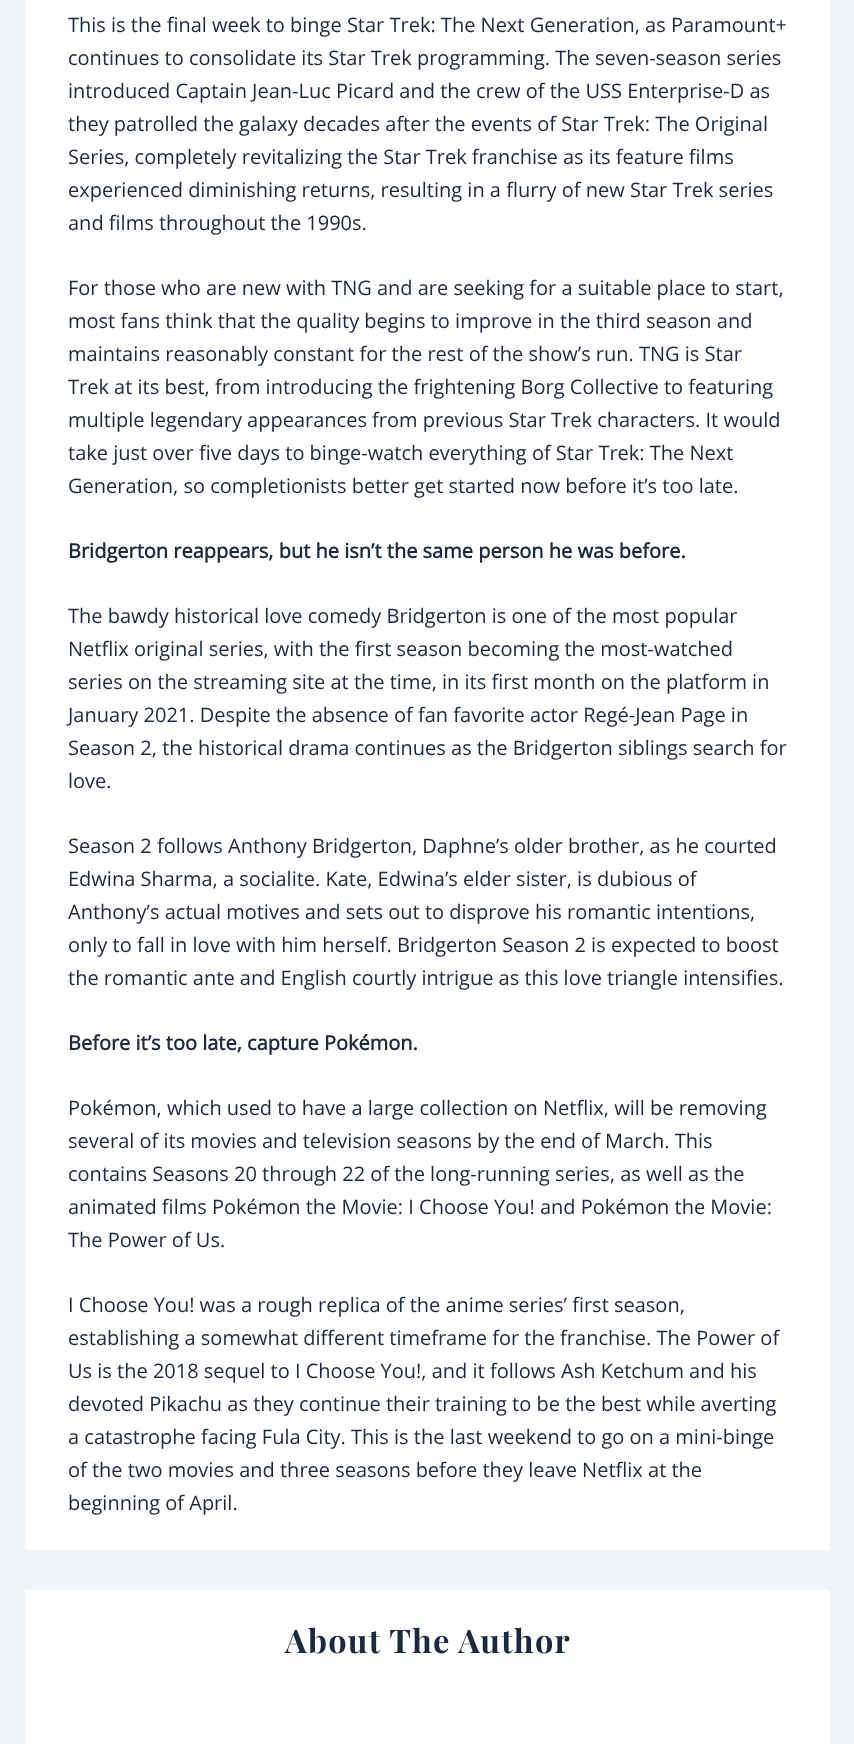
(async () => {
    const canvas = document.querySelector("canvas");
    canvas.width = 854;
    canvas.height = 1744;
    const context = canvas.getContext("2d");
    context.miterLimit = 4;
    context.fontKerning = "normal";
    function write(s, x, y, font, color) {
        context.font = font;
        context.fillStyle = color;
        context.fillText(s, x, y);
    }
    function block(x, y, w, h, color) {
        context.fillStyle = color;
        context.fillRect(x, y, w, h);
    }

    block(0, 0, 854, 1744, "rgb(240, 245, 250)");
    block(25, 0, 805, 1550, "rgb(255, 255, 255)");
    write("This is the final week to binge Star Trek: The Next Generation, as Paramount+", 68, 32, "20px Open Sans", "rgb(30, 41, 59)");
    write("continues to consolidate its Star Trek programming. The seven-season series", 68, 65, "20px Open Sans", "rgb(30, 41, 59)");
    write("introduced Captain Jean-Luc Picard and the crew of the USS Enterprise-D as", 68, 98, "20px Open Sans", "rgb(30, 41, 59)");
    write("they patrolled the galaxy decades after the events of Star Trek: The Original", 68, 131, "20px Open Sans", "rgb(30, 41, 59)");
    write("Series, completely revitalizing the Star Trek franchise as its feature films", 68, 164, "20px Open Sans", "rgb(30, 41, 59)");
    write("experienced diminishing returns, resulting in a flurry of new Star Trek series", 68, 197, "20px Open Sans", "rgb(30, 41, 59)");
    write("and films throughout the 1990s.", 68, 230, "20px Open Sans", "rgb(30, 41, 59)");
    write("For those who are new with TNG and are seeking for a suitable place to start,", 68, 295, "20px Open Sans", "rgb(30, 41, 59)");
    write("most fans think that the quality begins to improve in the third season and", 68, 328, "20px Open Sans", "rgb(30, 41, 59)");
    write("maintains reasonably constant for the rest of the show’s run. TNG is Star", 68, 361, "20px Open Sans", "rgb(30, 41, 59)");
    write("Trek at its best, from introducing the frightening Borg Collective to featuring", 68, 394, "20px Open Sans", "rgb(30, 41, 59)");
    write("multiple legendary appearances from previous Star Trek characters. It would", 68, 427, "20px Open Sans", "rgb(30, 41, 59)");
    write("take just over five days to binge-watch everything of Star Trek: The Next", 68, 460, "20px Open Sans", "rgb(30, 41, 59)");
    write("Generation, so completionists better get started now before it’s too late.", 68, 493, "20px Open Sans", "rgb(30, 41, 59)");
    write("Bridgerton reappears, but he isn’t the same person he was before.", 68, 558, "bold 20px Open Sans", "rgb(30, 41, 59)");
    write("The bawdy historical love comedy Bridgerton is one of the most popular", 68, 623, "20px Open Sans", "rgb(30, 41, 59)");
    write("Netflix original series, with the first season becoming the most-watched", 68, 656, "20px Open Sans", "rgb(30, 41, 59)");
    write("series on the streaming site at the time, in its first month on the platform in", 68, 689, "20px Open Sans", "rgb(30, 41, 59)");
    write("January 2021. Despite the absence of fan favorite actor Regé-Jean Page in", 68, 722, "20px Open Sans", "rgb(30, 41, 59)");
    write("Season 2, the historical drama continues as the Bridgerton siblings search for", 68, 755, "20px Open Sans", "rgb(30, 41, 59)");
    write("love.", 68, 788, "20px Open Sans", "rgb(30, 41, 59)");
    write("Season 2 follows Anthony Bridgerton, Daphne’s older brother, as he courted", 68, 853, "20px Open Sans", "rgb(30, 41, 59)");
    write("Edwina Sharma, a socialite. Kate, Edwina’s elder sister, is dubious of", 68, 886, "20px Open Sans", "rgb(30, 41, 59)");
    write("Anthony’s actual motives and sets out to disprove his romantic intentions,", 68, 919, "20px Open Sans", "rgb(30, 41, 59)");
    write("only to fall in love with him herself. Bridgerton Season 2 is expected to boost", 68, 952, "20px Open Sans", "rgb(30, 41, 59)");
    write("the romantic ante and English courtly intrigue as this love triangle intensifies.", 68, 985, "20px Open Sans", "rgb(30, 41, 59)");
    write("Before it’s too late, capture Pokémon.", 68, 1050, "bold 20px Open Sans", "rgb(30, 41, 59)");
    write("Pokémon, which used to have a large collection on Netflix, will be removing", 68, 1115, "20px Open Sans", "rgb(30, 41, 59)");
    write("several of its movies and television seasons by the end of March. This", 68, 1148, "20px Open Sans", "rgb(30, 41, 59)");
    write("contains Seasons 20 through 22 of the long-running series, as well as the", 68, 1181, "20px Open Sans", "rgb(30, 41, 59)");
    write("animated films Pokémon the Movie: I Choose You! and Pokémon the Movie:", 68, 1214, "20px Open Sans", "rgb(30, 41, 59)");
    write("The Power of Us.", 68, 1247, "20px Open Sans", "rgb(30, 41, 59)");
    write("I Choose You! was a rough replica of the anime series’ first season,", 68, 1312, "20px Open Sans", "rgb(30, 41, 59)");
    write("establishing a somewhat different timeframe for the franchise. The Power of", 68, 1345, "20px Open Sans", "rgb(30, 41, 59)");
    write("Us is the 2018 sequel to I Choose You!, and it follows Ash Ketchum and his", 68, 1378, "20px Open Sans", "rgb(30, 41, 59)");
    write("devoted Pikachu as they continue their training to be the best while averting", 68, 1411, "20px Open Sans", "rgb(30, 41, 59)");
    write("a catastrophe facing Fula City. This is the last weekend to go on a mini-binge", 68, 1444, "20px Open Sans", "rgb(30, 41, 59)");
    write("of the two movies and three seasons before they leave Netflix at the", 68, 1477, "20px Open Sans", "rgb(30, 41, 59)");
    write("beginning of April.", 68, 1510, "20px Open Sans", "rgb(30, 41, 59)");
    block(25, 1590, 805, 154, "rgb(255, 255, 255)");
    context.letterSpacing = "1.25px";
    write("About The Author", 285, 1653, "bold 32.5px Playfair Display", "rgb(30, 41, 59)");
})();
